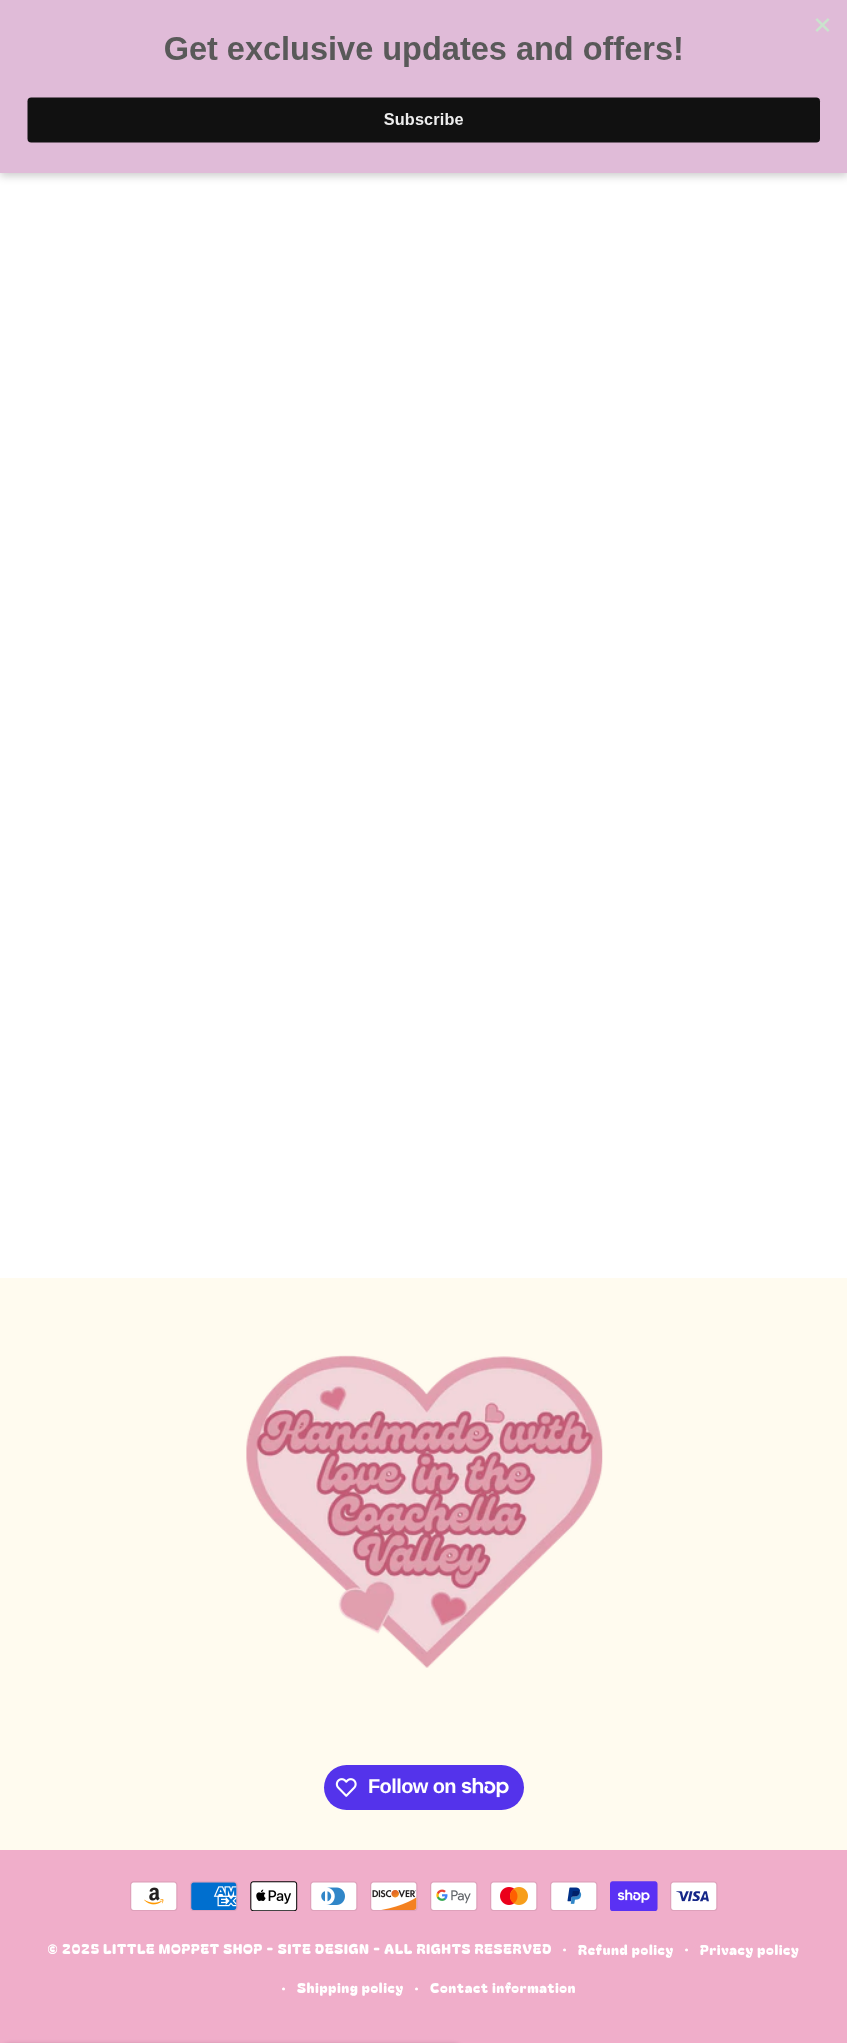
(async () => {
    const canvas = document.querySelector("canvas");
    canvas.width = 847;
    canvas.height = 2043;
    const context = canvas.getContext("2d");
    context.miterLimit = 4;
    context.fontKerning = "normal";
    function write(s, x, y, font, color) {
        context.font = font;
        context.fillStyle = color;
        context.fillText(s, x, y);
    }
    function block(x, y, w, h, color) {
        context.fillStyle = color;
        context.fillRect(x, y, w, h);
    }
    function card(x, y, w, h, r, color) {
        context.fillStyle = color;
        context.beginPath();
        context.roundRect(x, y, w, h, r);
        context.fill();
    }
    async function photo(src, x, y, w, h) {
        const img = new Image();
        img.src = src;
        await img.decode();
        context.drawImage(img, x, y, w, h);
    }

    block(0, 0, 847, 2043, "rgb(255, 255, 255)");
    context.fillStyle = "rgba(0, 0, 0, 0.2)";
    context.filter = "blur(4px)";
    context.beginPath();
    context.rect(0, 4, 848, 172);
    context.fill();
    context.filter = "none";
    await photo("media/1.png", 0, 0, 847, 173);
    block(0, 1278, 847, 572, "rgb(255, 251, 239)");
    await photo("media/2.png", 246, 1355, 357, 313);
    card(324, 1765, 200, 45, 22.5, "rgb(84, 51, 235)");
    await photo("media/3.png", 335, 1778, 22, 19);
    context.letterSpacing = "-0.6px";
    write("Follow on", 368, 1793, "bold 20px Liberation Sans", "rgb(255, 255, 255)");
    await photo("media/4.png", 461, 1778, 48, 20);
    block(0, 1850, 847, 193, "rgb(240, 174, 202)");
    await photo("media/5.png", 130, 1881, 48, 30);
    await photo("media/6.png", 190, 1881, 48, 30);
    await photo("media/7.png", 250, 1881, 48, 30);
    await photo("media/8.png", 310, 1881, 48, 30);
    await photo("media/9.png", 370, 1881, 48, 30);
    await photo("media/10.png", 430, 1881, 48, 30);
    await photo("media/11.png", 490, 1881, 48, 30);
    await photo("media/12.png", 550, 1881, 48, 30);
    await photo("media/13.png", 610, 1881, 48, 30);
    await photo("media/14.png", 670, 1881, 48, 30);
    context.letterSpacing = "0.88px";
    write("© 2025 LITTLE MOPPET SHOP - SITE DESIGN - ALL RIGHTS RESERVED", 47, 1954, "13.75px Bagel Fat One", "rgb(255, 255, 255)");
    write("·", 562, 1954, "12px Bagel Fat One", "rgb(255, 255, 255)");
    write("Refund policy", 578, 1955, "13.75px Bagel Fat One", "rgb(255, 255, 255)");
    write("·", 684, 1954, "12px Bagel Fat One", "rgb(255, 255, 255)");
    write("Privacy policy", 700, 1955, "13.75px Bagel Fat One", "rgb(255, 255, 255)");
    write("·", 281, 1993, "12px Bagel Fat One", "rgb(255, 255, 255)");
    write("Shipping policy", 297, 1993, "13.75px Bagel Fat One", "rgb(255, 255, 255)");
    write("·", 414, 1993, "12px Bagel Fat One", "rgb(255, 255, 255)");
    write("Contact information", 430, 1993, "13.75px Bagel Fat One", "rgb(255, 255, 255)");
    context.fillStyle = "rgba(0, 0, 0, 0.2)";
    context.filter = "blur(2px)";
    context.beginPath();
    context.roundRect(0, 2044, 463, 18, 13);
    context.fill();
    context.filter = "none";
})();
